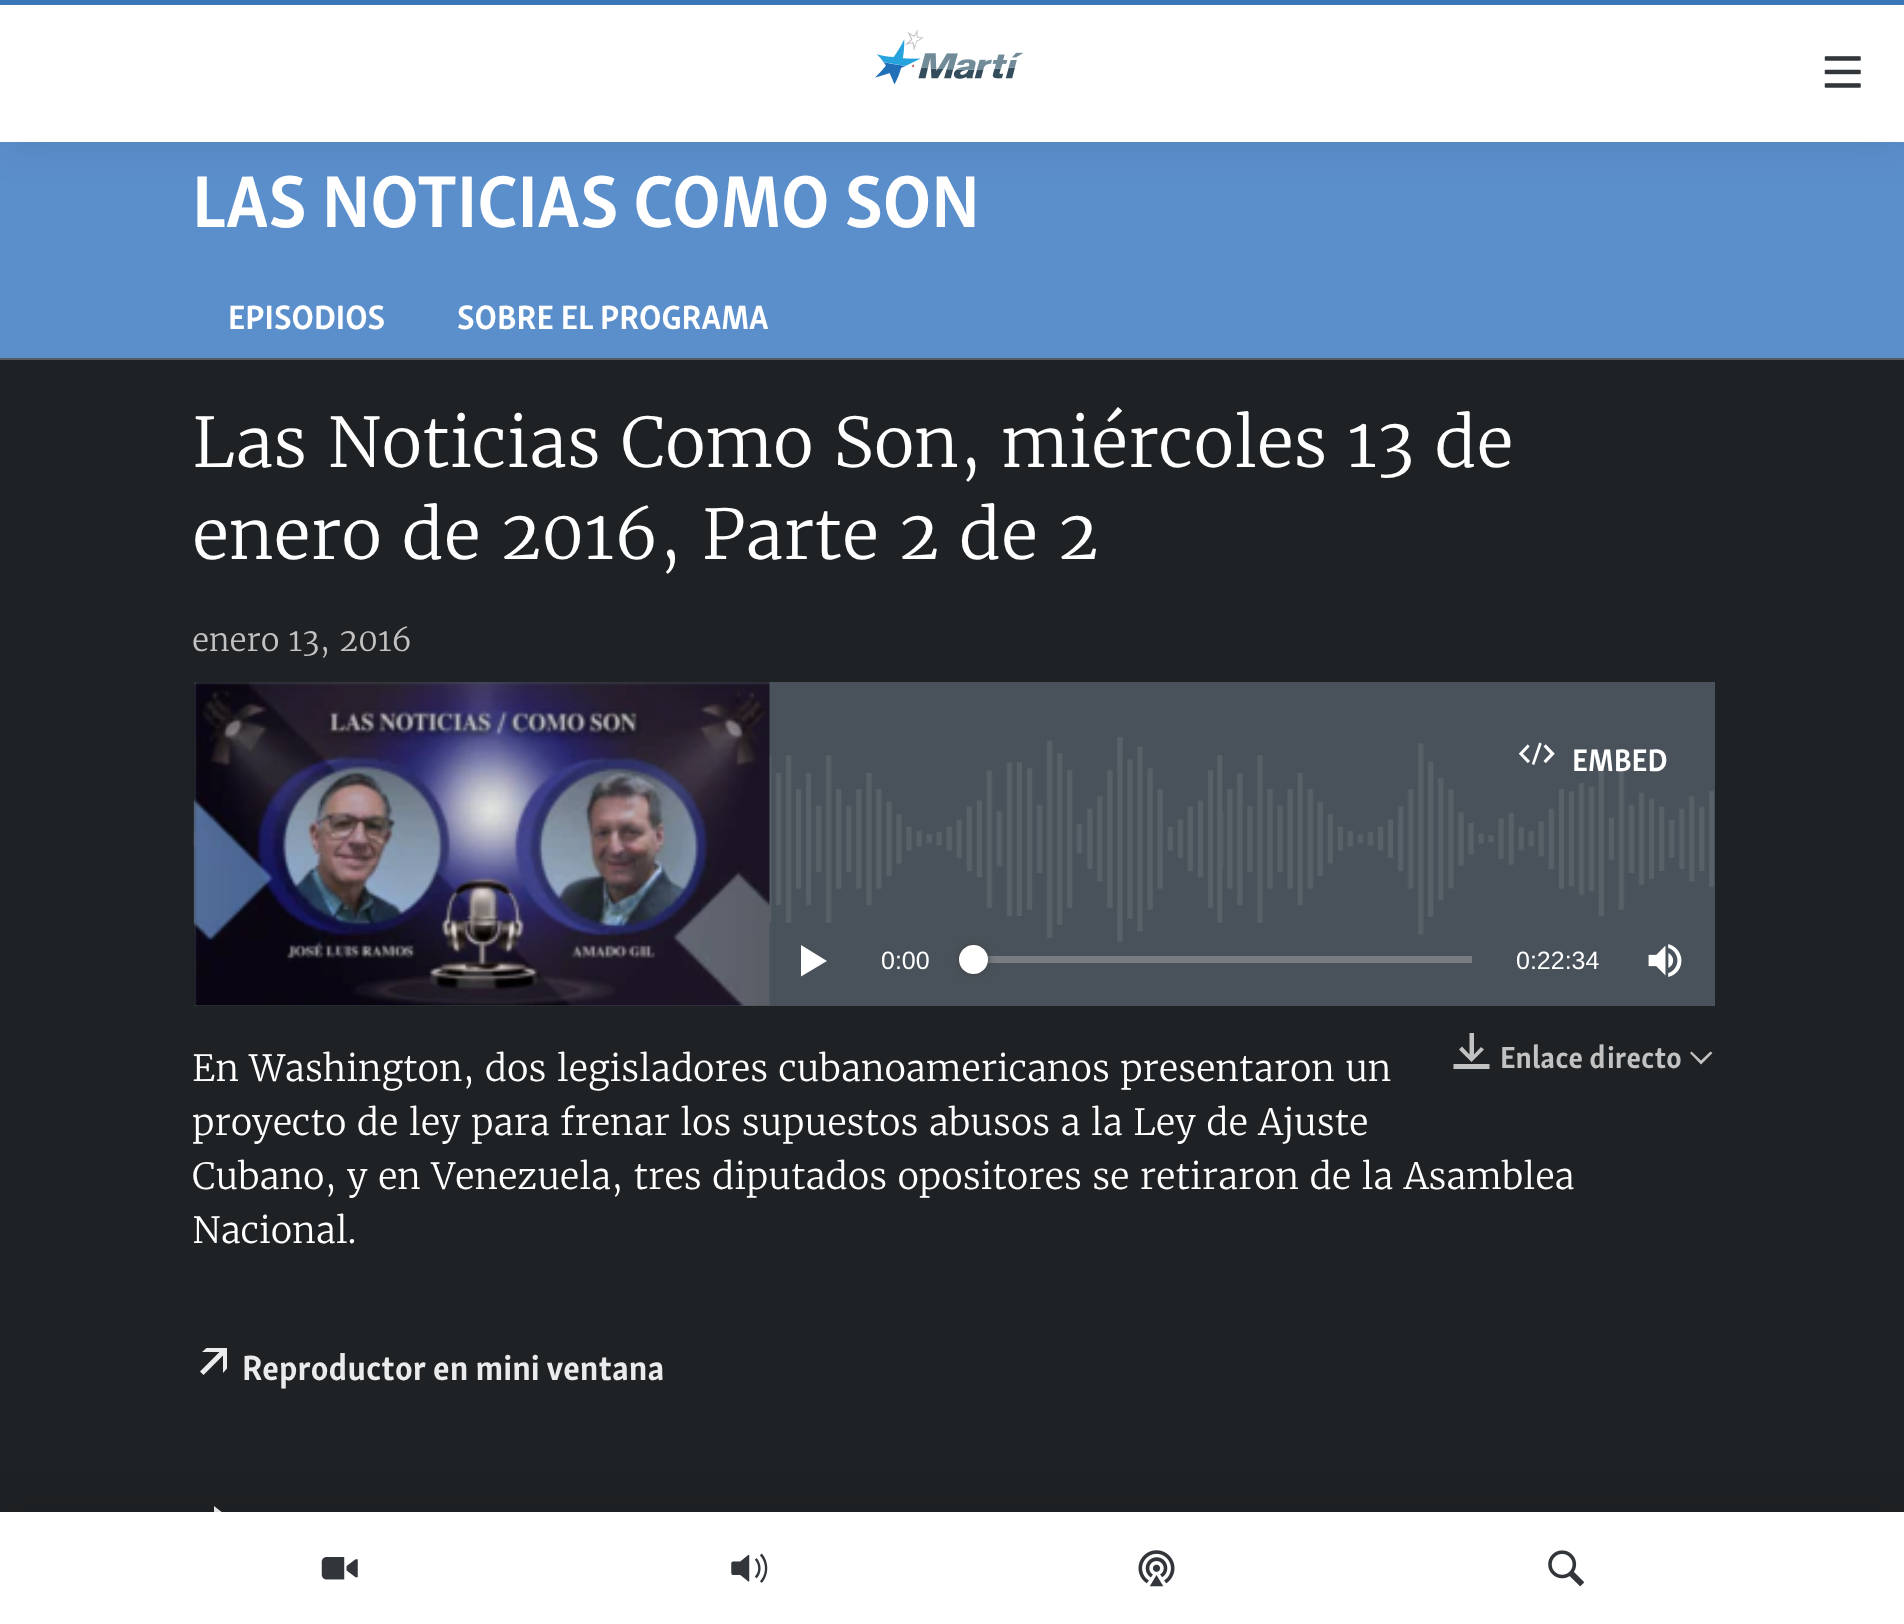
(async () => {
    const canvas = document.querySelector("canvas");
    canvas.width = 1904;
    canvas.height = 1624;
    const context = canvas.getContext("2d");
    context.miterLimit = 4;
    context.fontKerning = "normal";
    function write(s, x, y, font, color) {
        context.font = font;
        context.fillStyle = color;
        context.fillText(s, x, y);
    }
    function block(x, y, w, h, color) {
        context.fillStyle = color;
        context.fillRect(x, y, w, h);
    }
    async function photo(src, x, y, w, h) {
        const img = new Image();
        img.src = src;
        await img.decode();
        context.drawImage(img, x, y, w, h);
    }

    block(0, 0, 1904, 1624, "rgb(91, 143, 204)");
    context.fillStyle = "rgba(0, 0, 0, 0.1)";
    context.filter = "blur(22.5px)";
    context.beginPath();
    context.rect(0, 0, 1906, 142);
    context.fill();
    context.filter = "none";
    block(0, 5, 1904, 137, "rgb(255, 255, 255)");
    block(0, 0, 1904, 5, "rgb(58, 117, 186)");
    await photo("media/1.png", 875, 29, 149, 56);
    await photo("media/2.png", 1824, 56, 37, 32);
    block(0, 360, 1904, 1152, "rgb(31, 34, 36)");
    context.fillStyle = "rgb(233, 235, 236)";
    context.beginPath();
    context.moveTo(196, 1533);
    context.bezierCurveTo(196, 1522, 202.5, 1515, 214, 1514.5);
    context.lineTo(214, 1506);
    context.lineTo(232, 1520);
    context.lineTo(214, 1533);
    context.lineTo(214, 1524);
    context.bezierCurveTo(207, 1524.5, 199, 1526.5, 196, 1533);
    context.closePath();
    context.fill();
    context.fillStyle = "rgba(0, 0, 0, 0.1)";
    context.filter = "blur(22.5px)";
    context.beginPath();
    context.rect(0, 1512, 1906, 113);
    context.fill();
    context.filter = "none";
    block(0, 1512, 1904, 112, "rgb(255, 255, 255)");
    await photo("media/3.png", 321, 1557, 37, 23);
    await photo("media/4.png", 731, 1553, 37, 30);
    await photo("media/5.png", 1138, 1550, 37, 37);
    await photo("media/6.png", 1548, 1550, 36, 37);
    write("LAS NOTICIAS COMO SON", 192, 227, "bold 75.25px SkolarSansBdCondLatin", "rgb(255, 255, 255)");
    write("EPISODIOS", 228, 329, "bold 34.75px SkolarSansBdCondLatin", "rgb(255, 255, 255)");
    write("SOBRE EL PROGRAMA", 457, 329, "bold 34.75px SkolarSansBdCondLatin", "rgb(255, 255, 255)");
    block(0, 358, 1904, 2, "rgb(85, 92, 99)");
    write("Las Noticias Como Son, miércoles 13 de", 192, 467, "300 68.4px Merriweather", "rgb(255, 255, 255)");
    write("enero de 2016, Parte 2 de 2", 192, 559, "300 68.4px Merriweather", "rgb(255, 255, 255)");
    write("enero 13, 2016", 192, 651, "300 31.5px Merriweather", "rgb(194, 194, 194)");
    block(194, 682, 1521, 324, "rgb(73, 82, 90)");
    await photo("media/7.png", 193, 737, 1521, 205);
    await photo("media/8.png", 193, 682, 577, 324);
    await photo("media/9.png", 1518, 742, 37, 23);
    write("EMBED", 1572, 771, "bold 32px SkolarSansBdCondLatin", "rgb(255, 255, 255)");
    context.beginPath();
    context.moveTo(801, 976.5);
    context.lineTo(827, 961);
    context.lineTo(801, 945);
    context.closePath();
    context.fill();
    write("0:00", 881, 969, "25px Liberation Sans", "rgb(255, 255, 255)");
    block(987, 956, 485, 7, "rgb(119, 125, 131)");
    context.fillStyle = "rgb(65, 65, 68)";
    context.filter = "blur(3.5px)";
    context.beginPath();
    context.roundRect(959, 945, 29, 29, 14.5);
    context.fill();
    context.filter = "none";
    context.fillStyle = "rgb(255, 255, 255)";
    context.beginPath();
    context.arc(973.5, 959.5, 14.5, 0, Math.PI * 2);
    context.fill();
    write("0:22:34", 1516, 969, "25px Liberation Sans", "rgb(255, 255, 255)");
    await photo("media/10.png", 1648, 944, 34, 33);
    write("En Washington, dos legisladores cubanoamericanos presentaron un", 192, 1081, "300 36px Merriweather", "rgb(255, 255, 255)");
    write("proyecto de ley para frenar los supuestos abusos a la Ley de Ajuste", 192, 1135, "300 36px Merriweather", "rgb(255, 255, 255)");
    write("Cubano, y en Venezuela, tres diputados opositores se retiraron de la Asamblea", 192, 1189, "300 36px Merriweather", "rgb(255, 255, 255)");
    write("Nacional.", 192, 1243, "300 36px Merriweather", "rgb(255, 255, 255)");
    context.fillStyle = "rgb(194, 194, 194)";
    context.beginPath();
    context.moveTo(1489.5, 1064);
    context.lineTo(1489.5, 1069);
    context.lineTo(1453.5, 1069);
    context.lineTo(1453.5, 1064);
    context.closePath();
    context.moveTo(1484, 1049.5);
    context.lineTo(1481, 1047);
    context.lineTo(1474, 1054.5);
    context.lineTo(1474, 1033);
    context.lineTo(1469.5, 1033);
    context.lineTo(1469.5, 1054.5);
    context.lineTo(1462, 1046.5);
    context.lineTo(1459, 1049.5);
    context.lineTo(1471.5, 1062);
    context.closePath();
    context.fill();
    write("Enlace directo", 1500, 1068, "bold 31.5px SkolarSansBdCondLatin", "rgb(194, 194, 194)");
    context.beginPath();
    context.moveTo(1690, 1053);
    context.lineTo(1701, 1064.5);
    context.lineTo(1712.5, 1053);
    context.lineTo(1710.5, 1051.5);
    context.lineTo(1701, 1060.5);
    context.lineTo(1691.5, 1051.5);
    context.closePath();
    context.fill();
    context.fillStyle = "rgb(233, 235, 236)";
    context.beginPath();
    context.moveTo(227, 1348);
    context.lineTo(206.5, 1348);
    context.lineTo(202, 1352);
    context.lineTo(219.5, 1352);
    context.lineTo(200, 1371.5);
    context.lineTo(203.5, 1375);
    context.lineTo(223, 1355.5);
    context.lineTo(223, 1373);
    context.lineTo(227, 1368.5);
    context.closePath();
    context.fill();
    write("Reproductor en mini ventana", 242, 1380, "bold 36px SkolarSansBdCondLatin", "rgb(233, 235, 236)");
})();
